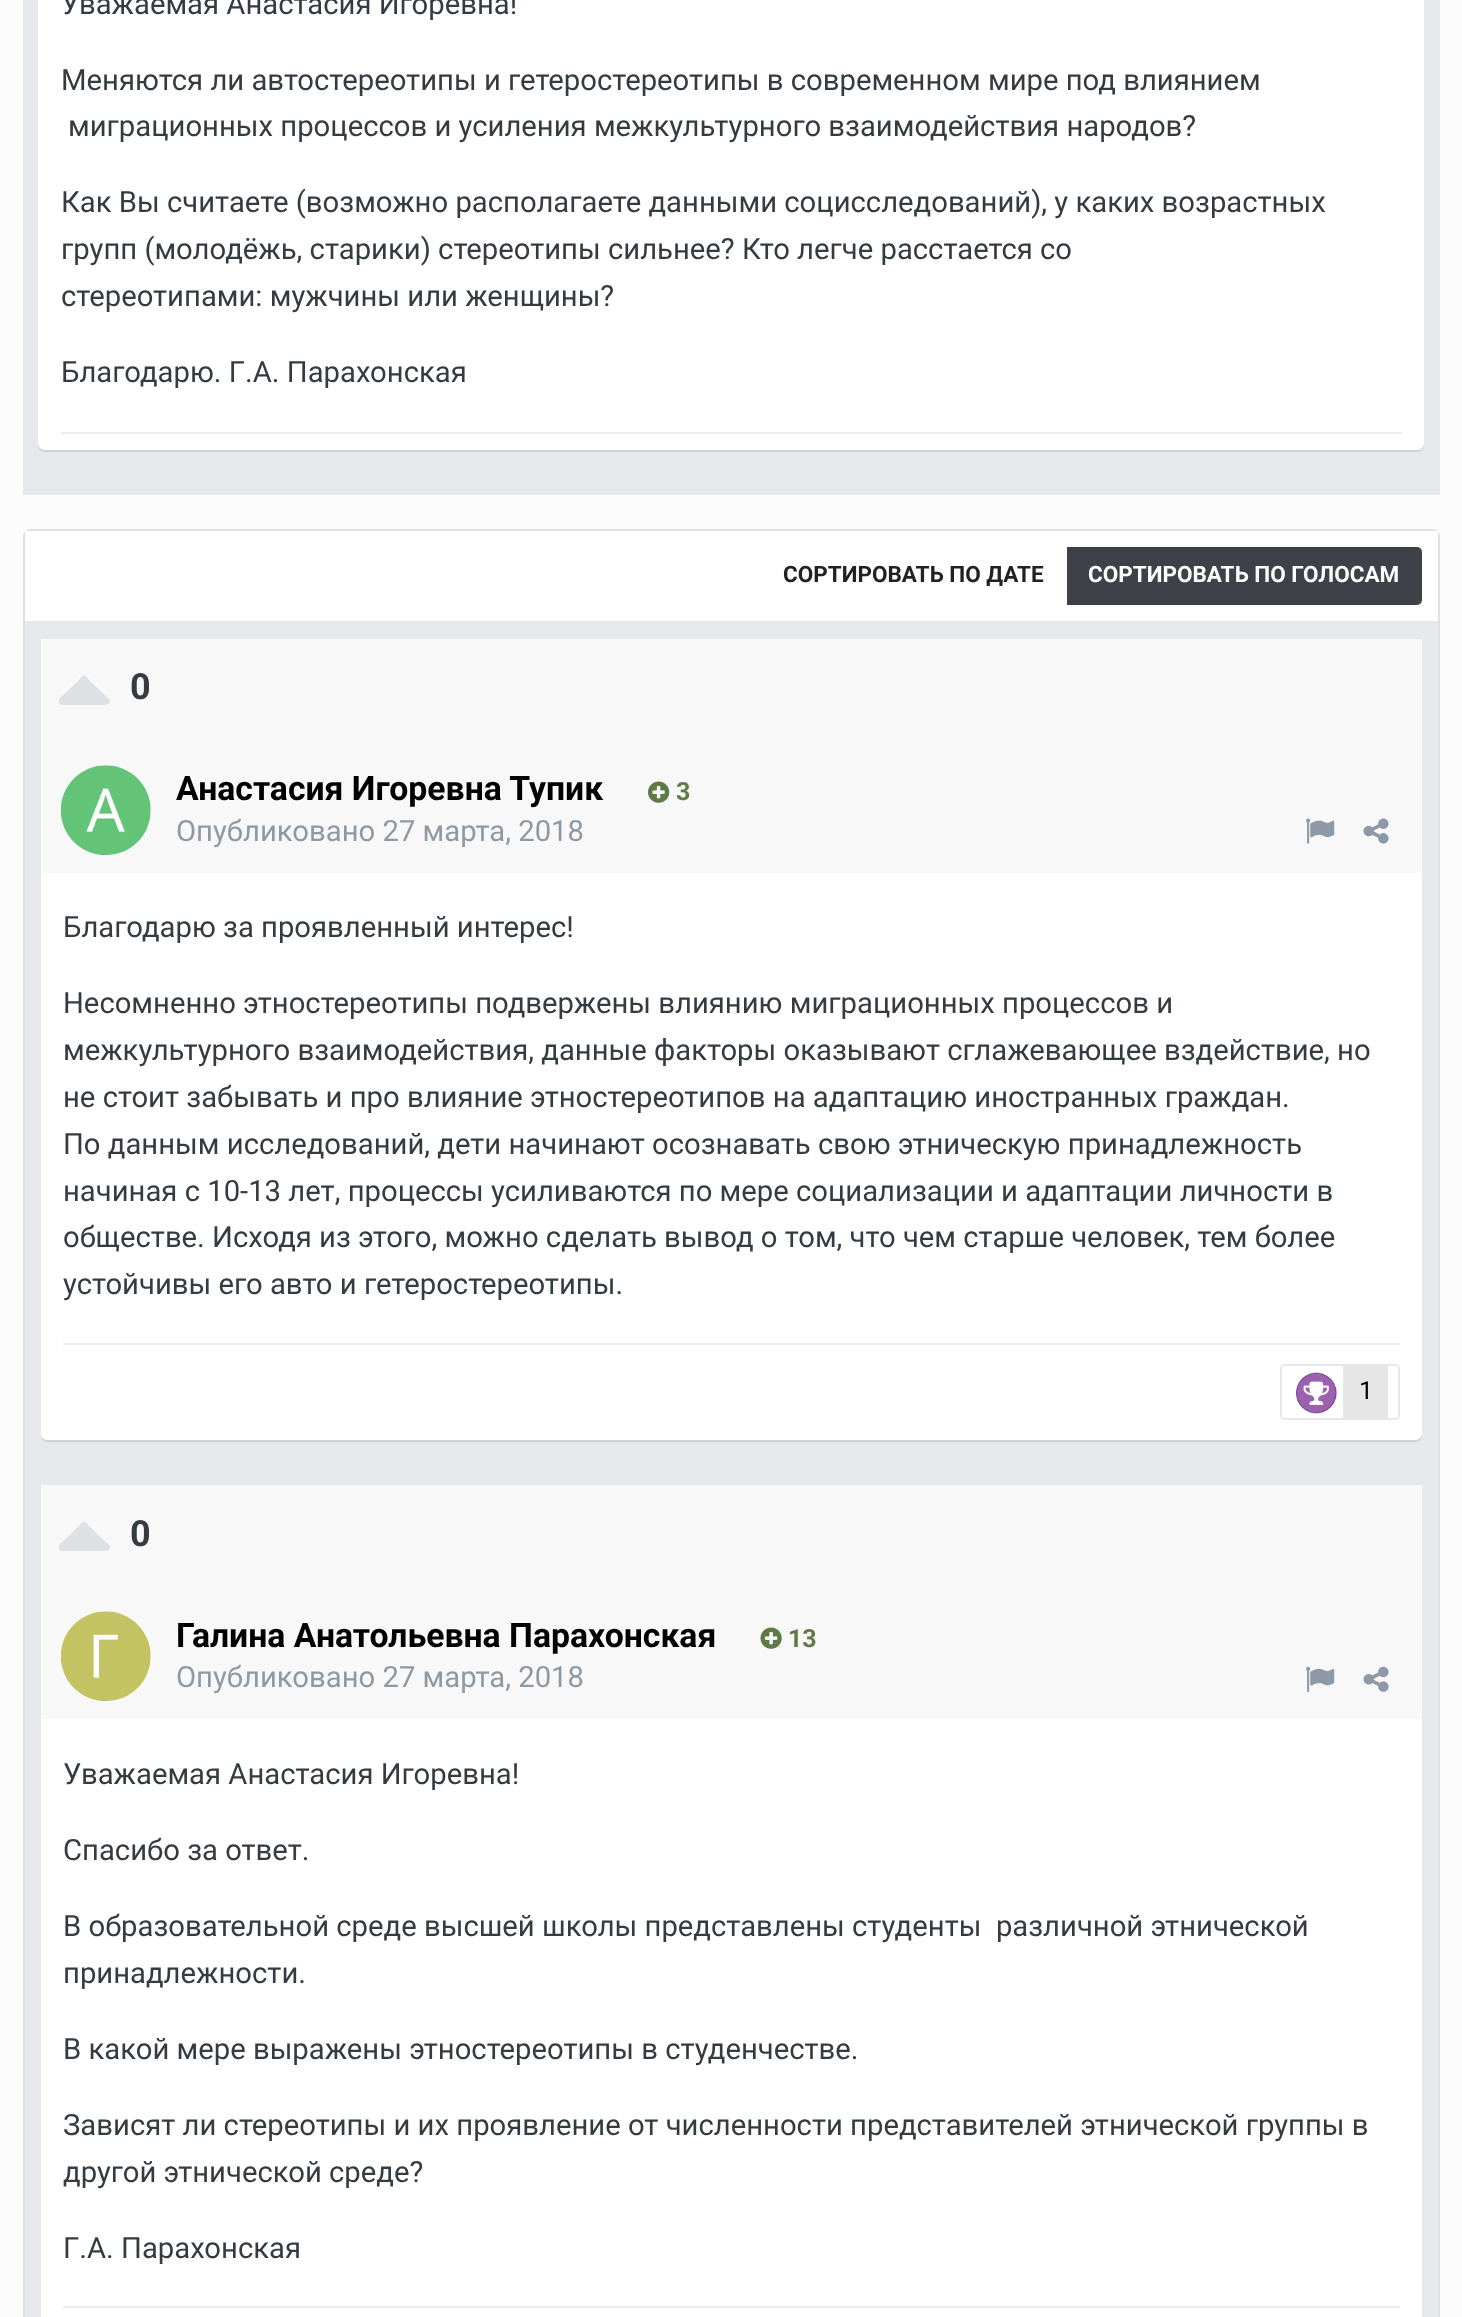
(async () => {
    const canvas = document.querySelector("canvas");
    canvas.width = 1462;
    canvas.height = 2317;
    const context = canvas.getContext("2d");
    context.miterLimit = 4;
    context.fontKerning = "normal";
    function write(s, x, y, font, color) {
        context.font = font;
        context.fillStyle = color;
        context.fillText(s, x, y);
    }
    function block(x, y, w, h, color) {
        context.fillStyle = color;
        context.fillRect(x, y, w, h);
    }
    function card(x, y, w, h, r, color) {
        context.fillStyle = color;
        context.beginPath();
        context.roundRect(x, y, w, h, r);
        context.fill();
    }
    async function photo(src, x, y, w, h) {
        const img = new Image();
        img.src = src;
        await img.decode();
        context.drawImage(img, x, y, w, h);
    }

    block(0, 0, 1462, 2317, "rgb(252, 252, 252)");
    block(23, 0, 1417, 495, "rgb(230, 232, 235)");
    context.fillStyle = "rgb(207, 209, 212)";
    context.beginPath();
    context.moveTo(38, -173);
    context.lineTo(38, 445);
    context.bezierCurveTo(38, 449, 41, 452, 45, 452);
    context.lineTo(1417, 452);
    context.bezierCurveTo(1421, 452, 1424, 449, 1424, 445);
    context.bezierCurveTo(1423, 448, 1421, 450, 1418, 450);
    context.lineTo(45, 450);
    context.bezierCurveTo(41, 450, 38, 447, 38, 443);
    context.closePath();
    context.fill();
    card(38, -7, 1386, 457, 7, "rgb(255, 255, 255)");
    write("Уважаемая Анастасия Игоревна!", 61, 14, "29.25px Roboto", "rgb(53, 60, 65)");
    write("Меняются ли автостереотипы и гетеростереотипы в современном мире под влиянием", 61, 90, "29.25px Roboto", "rgb(53, 60, 65)");
    write("миграционных процессов и усиления межкультурного взаимодействия народов?", 68, 136, "29.25px Roboto", "rgb(53, 60, 65)");
    write("Как Вы считаете (возможно располагаете данными социсследований), у каких возрастных", 61, 212, "29.25px Roboto", "rgb(53, 60, 65)");
    write("групп (молодёжь, старики) стереотипы сильнее? Кто легче расстается со", 61, 259, "29.25px Roboto", "rgb(53, 60, 65)");
    write("стереотипами: мужчины или женщины?", 61, 306, "29.25px Roboto", "rgb(53, 60, 65)");
    write("Благодарю. Г.А. Парахонская", 61, 382, "29.25px Roboto", "rgb(53, 60, 65)");
    block(61, 432, 1341, 2, "rgb(236, 236, 236)");
    context.beginPath();
    context.roundRect(24, 530, 1415, 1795, 6);
    context.strokeStyle = "rgb(224, 224, 224)";
    context.lineWidth = 2;
    context.stroke();
    block(25, 531, 1413, 90, "rgb(255, 255, 255)");
    block(25, 621, 1413, 2, "rgb(230, 230, 230)");
    write("СОРТИРОВАТЬ ПО ДАТЕ", 783, 582, "bold 22.5px Roboto", "rgb(34, 34, 34)");
    context.fillStyle = "rgb(62, 65, 72)";
    context.beginPath();
    context.roundRect(1067, 547, 355, 58, [0, 5, 5, 0]);
    context.fill();
    write("СОРТИРОВАТЬ ПО ГОЛОСАМ", 1088, 582, "bold 22.5px Roboto", "rgb(255, 255, 255)");
    block(25, 623, 1413, 1694, "rgb(230, 232, 235)");
    context.fillStyle = "rgb(207, 209, 212)";
    context.beginPath();
    context.moveTo(41, 1436);
    context.bezierCurveTo(42, 1439, 44, 1442, 48, 1442);
    context.lineTo(1415, 1442);
    context.bezierCurveTo(1419, 1442, 1422, 1439, 1422, 1435);
    context.lineTo(1422, 1433);
    context.bezierCurveTo(1422, 1437, 1419, 1440, 1415, 1440);
    context.lineTo(47, 1440);
    context.bezierCurveTo(44, 1440, 42, 1438, 41, 1436);
    context.closePath();
    context.fill();
    card(41, 639, 1381, 801, 7, "rgb(255, 255, 255)");
    block(41, 639, 1381, 234, "rgb(248, 248, 248)");
    context.save();
    context.beginPath();
    context.rect(59, 653, 51, 67);
    context.clip();
    context.fillStyle = "rgb(221, 225, 228)";
    context.beginPath();
    context.moveTo(109, 699);
    context.lineTo(110, 700);
    context.bezierCurveTo(112, 706, 100, 705, 99, 705);
    context.lineTo(61, 705);
    context.bezierCurveTo(59, 704, 58, 701, 59, 699);
    context.lineTo(78, 681);
    context.bezierCurveTo(84, 674, 84, 674, 90, 681);
    context.closePath();
    context.fill();
    context.restore();
    write("0", 130, 699, "bold 36px Roboto", "rgb(53, 60, 65)");
    context.fillStyle = "rgb(255, 255, 255)";
    context.beginPath();
    context.arc(106, 810, 45, 0, Math.PI * 2);
    context.fill();
    await photo("media/1.png", 60, 765, 91, 91);
    write("Анастасия Игоревна Тупик", 176, 800, "bold 33.75px Roboto", "rgb(0, 0, 0)");
    await photo("media/2.png", 648, 781, 22, 22);
    write("3", 676, 800, "bold 25px Roboto", "rgb(95, 122, 71)");
    write("Опубликовано 27 марта, 2018", 176, 841, "29.25px Roboto", "rgb(141, 154, 166)");
    await photo("media/3.png", 1306, 818, 29, 26);
    await photo("media/4.png", 1363, 818, 26, 26);
    write("Благодарю за проявленный интерес!", 63, 937, "29.25px Roboto", "rgb(53, 60, 65)");
    write("Несомненно этностереотипы подвержены влиянию миграционных процессов и", 63, 1013, "29.25px Roboto", "rgb(53, 60, 65)");
    write("межкультурного взаимодействия, данные факторы оказывают сглажевающее вздействие, но", 63, 1060, "29.25px Roboto", "rgb(53, 60, 65)");
    write("не стоит забывать и про влияние этностереотипов на адаптацию иностранных граждан.", 63, 1107, "29.25px Roboto", "rgb(53, 60, 65)");
    write("По данным исследований, дети начинают осознавать свою этническую принадлежность", 63, 1154, "29.25px Roboto", "rgb(53, 60, 65)");
    write("начиная с 10-13 лет, процессы усиливаются по мере социализации и адаптации личности в", 63, 1201, "29.25px Roboto", "rgb(53, 60, 65)");
    write("обществе. Исходя из этого, можно сделать вывод о том, что чем старше человек, тем более", 63, 1247, "29.25px Roboto", "rgb(53, 60, 65)");
    write("устойчивы его авто и гетеростереотипы.", 63, 1294, "29.25px Roboto", "rgb(53, 60, 65)");
    block(63, 1343, 1337, 2, "rgb(236, 236, 236)");
    context.beginPath();
    context.roundRect(1281, 1365, 118, 54, 4);
    context.strokeStyle = "rgb(230, 230, 230)";
    context.stroke();
    await photo("media/5.png", 1296, 1372, 41, 42);
    block(1343, 1366, 45, 52, "rgb(230, 230, 230)");
    write("1", 1359, 1399, "25px Roboto", "rgb(0, 0, 0)");
    block(41, 1719, 1381, 598, "rgb(255, 255, 255)");
    block(41, 1485, 1381, 234, "rgb(248, 248, 248)");
    context.save();
    context.beginPath();
    context.rect(59, 1499, 51, 67);
    context.clip();
    context.fillStyle = "rgb(221, 225, 228)";
    context.beginPath();
    context.moveTo(109, 1545);
    context.lineTo(110, 1546);
    context.bezierCurveTo(112, 1552, 100, 1551, 99, 1551);
    context.lineTo(61, 1551);
    context.bezierCurveTo(59, 1550, 58, 1547, 59, 1545);
    context.lineTo(78, 1527);
    context.bezierCurveTo(84, 1520, 84, 1520, 90, 1527);
    context.closePath();
    context.fill();
    context.restore();
    write("0", 130, 1546, "bold 36px Roboto", "rgb(53, 60, 65)");
    context.fillStyle = "rgb(255, 255, 255)";
    context.beginPath();
    context.arc(106, 1656, 45, 0, Math.PI * 2);
    context.fill();
    await photo("media/6.png", 60, 1611, 91, 91);
    write("Галина Анатольевна Парахонская", 176, 1647, "bold 33.75px Roboto", "rgb(0, 0, 0)");
    await photo("media/7.png", 760, 1627, 22, 22);
    write("13", 788, 1647, "bold 25px Roboto", "rgb(95, 122, 71)");
    write("Опубликовано 27 марта, 2018", 176, 1687, "29.25px Roboto", "rgb(141, 154, 166)");
    await photo("media/8.png", 1306, 1666, 29, 26);
    await photo("media/9.png", 1363, 1666, 26, 26);
    write("Уважаемая Анастасия Игоревна!", 63, 1784, "29.25px Roboto", "rgb(53, 60, 65)");
    write("Спасибо за ответ.", 63, 1860, "29.25px Roboto", "rgb(53, 60, 65)");
    write("В образовательной среде высшей школы представлены студенты  различной этнической", 63, 1936, "29.25px Roboto", "rgb(53, 60, 65)");
    write("принадлежности.", 63, 1983, "29.25px Roboto", "rgb(53, 60, 65)");
    write("В какой мере выражены этностереотипы в студенчестве.", 63, 2059, "29.25px Roboto", "rgb(53, 60, 65)");
    write("Зависят ли стереотипы и их проявление от численности представителей этнической группы в", 63, 2135, "29.25px Roboto", "rgb(53, 60, 65)");
    write("другой этнической среде?", 63, 2182, "29.25px Roboto", "rgb(53, 60, 65)");
    write("Г.А. Парахонская", 63, 2258, "29.25px Roboto", "rgb(53, 60, 65)");
    block(63, 2306, 1337, 2, "rgb(236, 236, 236)");
})();
